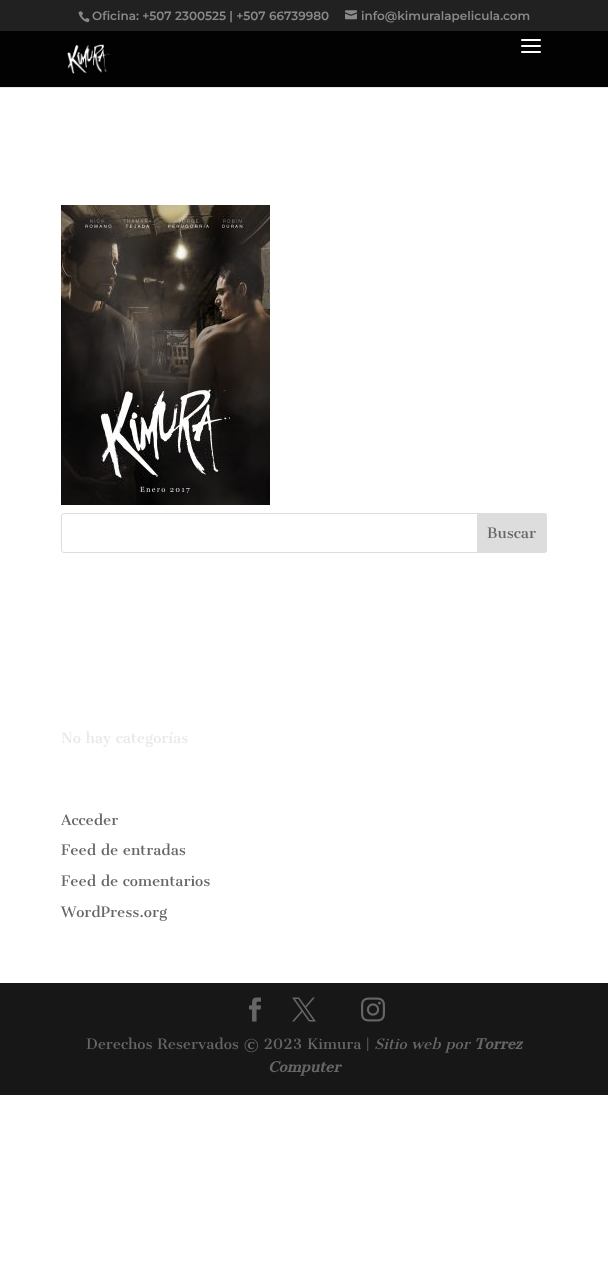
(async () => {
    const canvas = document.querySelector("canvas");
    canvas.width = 608;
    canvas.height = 1276;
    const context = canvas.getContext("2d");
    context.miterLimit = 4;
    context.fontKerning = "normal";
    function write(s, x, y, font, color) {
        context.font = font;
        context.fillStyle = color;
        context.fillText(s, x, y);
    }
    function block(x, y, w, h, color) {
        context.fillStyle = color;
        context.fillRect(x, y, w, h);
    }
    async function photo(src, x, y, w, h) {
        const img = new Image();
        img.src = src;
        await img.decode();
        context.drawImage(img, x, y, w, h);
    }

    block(0, 0, 608, 1276, "rgb(255, 255, 255)");
    block(0, 0, 608, 31, "rgb(33, 33, 33)");
    await photo("media/1.png", 78, 11, 12, 12);
    write("Oficina: +507 2300525 | +507 66739980", 92, 20, "100 12px Montserrat", "rgb(137, 137, 137)");
    await photo("media/2.png", 345, 10, 12, 10);
    write("info@kimuralapelicula.com", 361, 20, "100 12px Montserrat", "rgb(137, 137, 137)");
    block(0, 87, 608, 1, "rgb(230, 230, 230)");
    block(0, 31, 608, 56, "rgb(2, 2, 2)");
    await photo("media/3.png", 67, 44, 44, 30);
    await photo("media/4.png", 521, 39, 20, 14);
    await photo("media/5.png", 61, 205, 209, 300);
    context.beginPath();
    context.roundRect(61.5, 513.5, 485, 39, 2.5);
    context.strokeStyle = "rgb(221, 221, 221)";
    context.stroke();
    context.fillStyle = "rgb(221, 221, 221)";
    context.beginPath();
    context.roundRect(477.5, 513.5, 69, 39, [0, 2.5, 2.5, 0]);
    context.fill();
    context.stroke();
    write("Buscar", 487, 538, "14px Cantata One", "rgb(102, 102, 102)");
    write("No hay categorías", 61, 743, "14px Cantata One", "rgb(232, 232, 232)");
    write("Acceder", 61, 825, "14px Cantata One", "rgb(102, 102, 102)");
    write("Feed de entradas", 61, 855, "14px Cantata One", "rgb(102, 102, 102)");
    write("Feed de comentarios", 61, 886, "14px Cantata One", "rgb(102, 102, 102)");
    write("WordPress.org", 61, 917, "14px Cantata One", "rgb(102, 102, 102)");
    block(0, 983, 608, 112, "rgb(23, 23, 23)");
    await photo("media/6.png", 249, 997, 12, 25);
    await photo("media/7.png", 292, 997, 24, 25);
    await photo("media/8.png", 361, 997, 24, 25);
    write("Derechos Reservados © 2023 Kimura |", 86, 1049, "14px Cantata One", "rgb(102, 102, 102)");
    write("Sitio web por", 374, 1049, "italic 14px Cantata One", "rgb(102, 102, 102)");
    write("Torrez", 474, 1049, "italic bold 14px Cantata One", "rgb(102, 102, 102)");
    write("Computer", 268, 1072, "italic bold 14px Cantata One", "rgb(102, 102, 102)");
})();
